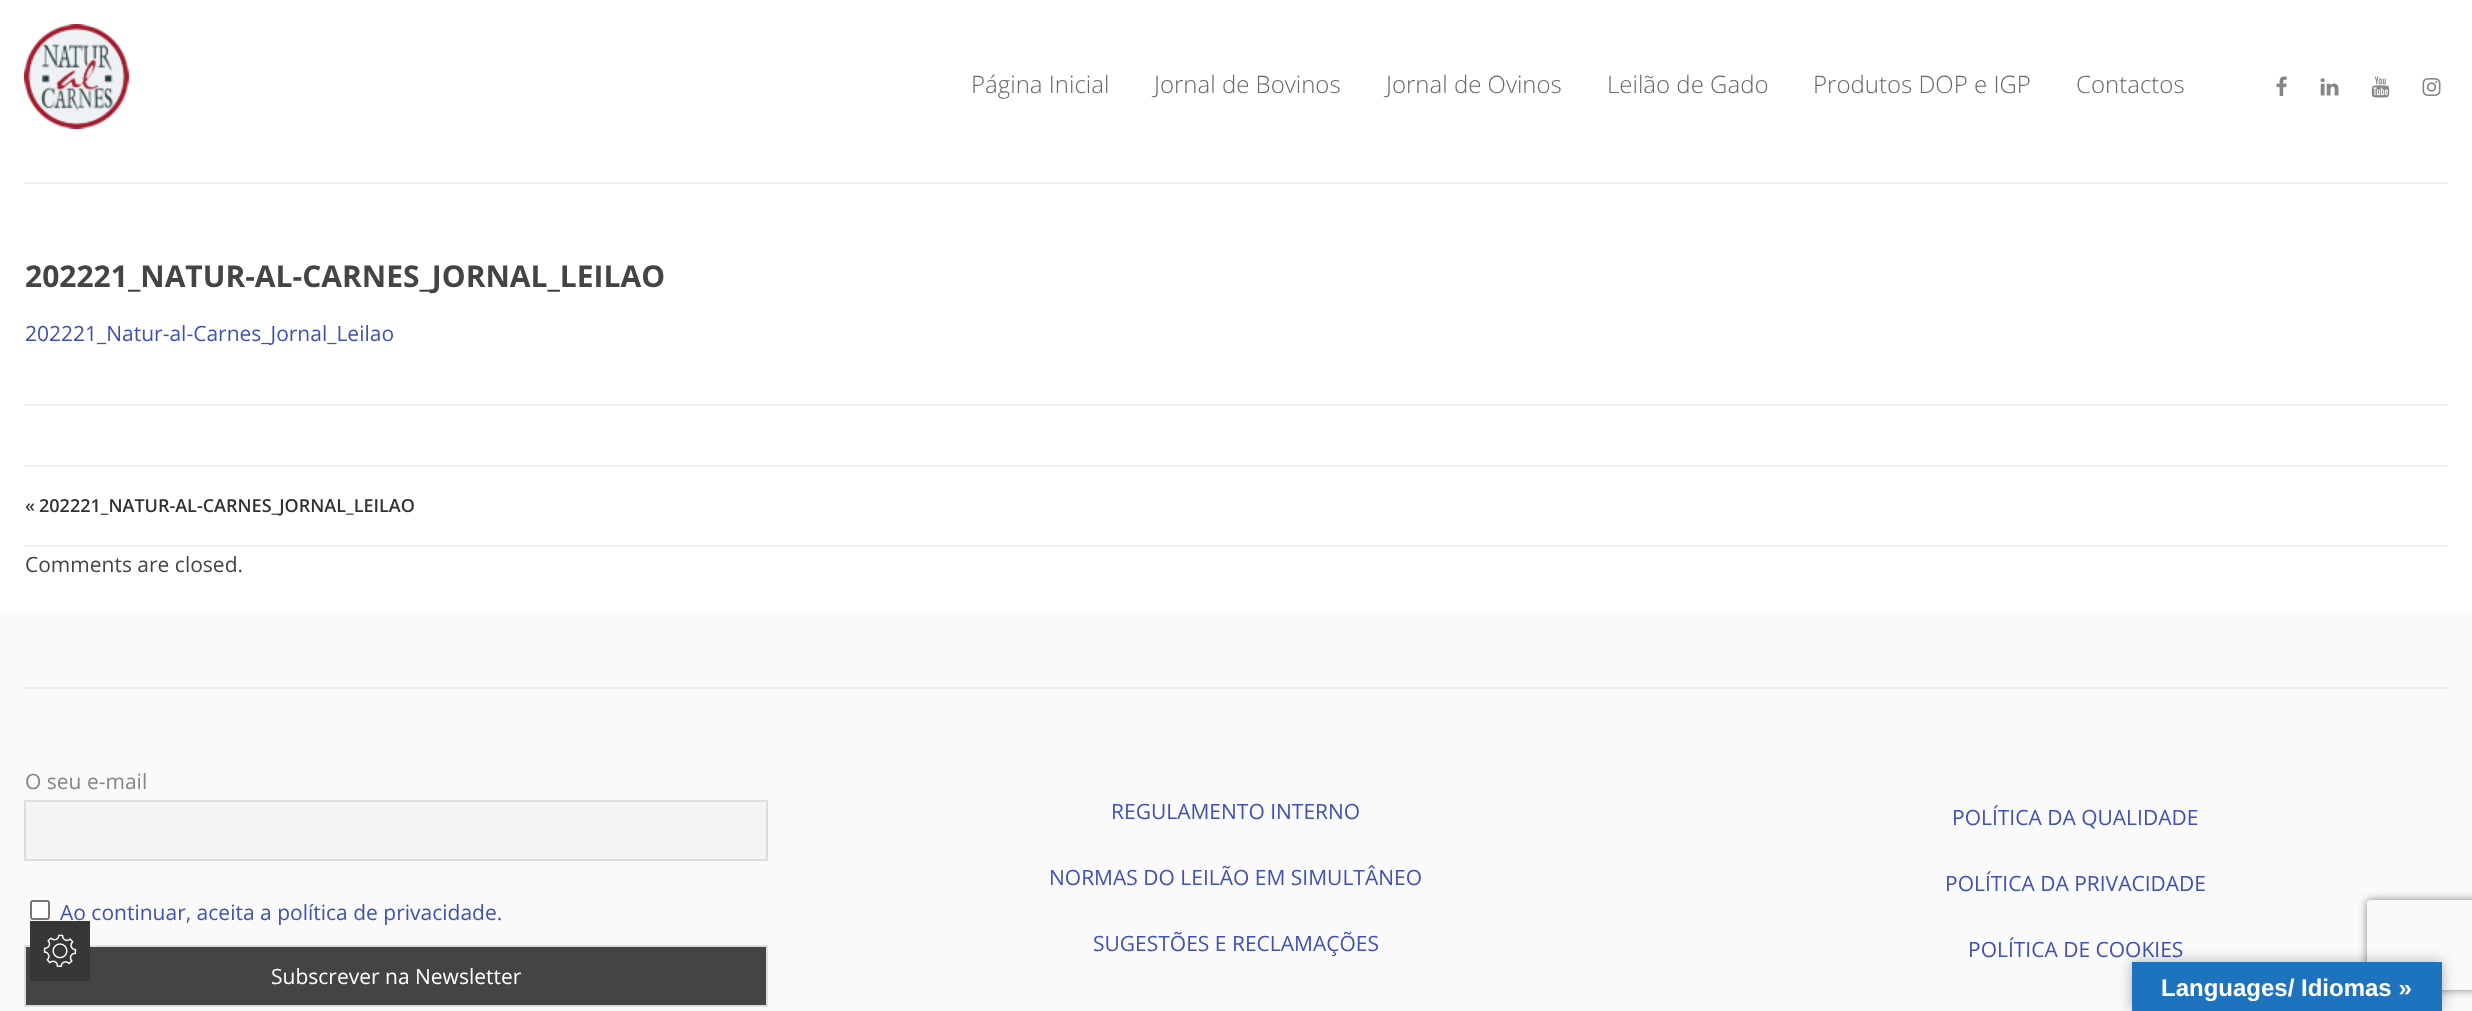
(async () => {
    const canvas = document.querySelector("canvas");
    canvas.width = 2472;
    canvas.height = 1011;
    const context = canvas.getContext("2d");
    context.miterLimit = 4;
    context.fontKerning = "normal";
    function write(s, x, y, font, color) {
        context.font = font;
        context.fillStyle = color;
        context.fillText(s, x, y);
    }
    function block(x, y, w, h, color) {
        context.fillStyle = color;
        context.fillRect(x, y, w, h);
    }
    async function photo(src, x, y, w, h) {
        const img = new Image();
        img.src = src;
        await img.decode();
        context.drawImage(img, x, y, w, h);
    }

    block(0, 0, 2472, 1011, "rgb(255, 255, 255)");
    await photo("media/1.png", 24, 24, 106, 105);
    write("Página Inicial", 971, 93, "300 24px Open Sans", "rgb(104, 104, 104)");
    write("Jornal de Bovinos", 1154, 93, "300 24px Open Sans", "rgb(104, 104, 104)");
    write("Jornal de Ovinos", 1386, 93, "300 24px Open Sans", "rgb(104, 104, 104)");
    write("Leilão de Gado", 1607, 93, "300 24px Open Sans", "rgb(104, 104, 104)");
    write("Produtos DOP e IGP", 1813, 93, "300 24px Open Sans", "rgb(104, 104, 104)");
    write("Contactos", 2076, 93, "300 24px Open Sans", "rgb(104, 104, 104)");
    await photo("media/2.png", 2276, 76, 11, 20);
    await photo("media/3.png", 2320, 78, 19, 18);
    await photo("media/4.png", 2371, 76, 19, 22);
    await photo("media/5.png", 2422, 78, 19, 18);
    block(24, 182, 2424, 2, "rgb(239, 239, 239)");
    block(24, 404, 2424, 2, "rgb(239, 239, 239)");
    write("202221_NATUR-AL-CARNES_JORNAL_LEILAO", 25, 287, "bold 30px Open Sans", "rgb(68, 68, 68)");
    write("202221_Natur-al-Carnes_Jornal_Leilao", 25, 341, "21px Open Sans", "rgb(63, 81, 181)");
    block(24, 465, 2424, 2, "rgb(239, 239, 239)");
    block(24, 545, 2424, 2, "rgb(239, 239, 239)");
    write("«", 25, 512, "600 18px Open Sans", "rgb(68, 68, 68)");
    write("202221_NATUR-AL-CARNES_JORNAL_LEILAO", 39, 512, "600 18px Open Sans", "rgb(50, 50, 50)");
    write("Comments are closed.", 25, 572, "21px Open Sans", "rgb(68, 68, 68)");
    block(0, 612, 2472, 399, "rgb(250, 250, 250)");
    block(24, 687, 2424, 2, "rgb(239, 239, 239)");
    write("O seu e-mail", 25, 789, "21px Open Sans", "rgb(134, 134, 134)");
    context.fillStyle = "rgb(244, 244, 244)";
    context.beginPath();
    context.rect(25, 801, 742, 59);
    context.fill();
    context.strokeStyle = "rgb(221, 221, 221)";
    context.lineWidth = 2;
    context.stroke();
    context.fillStyle = "rgb(255, 255, 255)";
    context.beginPath();
    context.roundRect(31, 901, 18, 18, 2);
    context.fill();
    context.strokeStyle = "rgb(118, 118, 118)";
    context.stroke();
    write("Ao continuar, aceita a política de privacidade.", 60, 920, "21px Open Sans", "rgb(63, 81, 181)");
    context.fillStyle = "rgb(68, 68, 68)";
    context.beginPath();
    context.rect(25, 946, 742, 60);
    context.fill();
    context.strokeStyle = "rgb(221, 221, 221)";
    context.stroke();
    write("Subscrever na Newsletter", 271, 984, "21px Open Sans", "rgb(255, 255, 255)");
    write("REGULAMENTO INTERNO", 1111, 819, "21px Open Sans", "rgb(63, 81, 181)");
    write("NORMAS DO LEILÃO EM SIMULTÂNEO", 1049, 885, "21px Open Sans", "rgb(63, 81, 181)");
    write("SUGESTÕES E RECLAMAÇÕES", 1093, 951, "21px Open Sans", "rgb(63, 81, 181)");
    write("POLÍTICA DA QUALIDADE", 1952, 825, "21px Open Sans", "rgb(63, 81, 181)");
    write("POLÍTICA DA PRIVACIDADE", 1945, 891, "21px Open Sans", "rgb(63, 81, 181)");
    write("POLÍTICA DE COOKIES", 1968, 957, "21px Open Sans", "rgb(63, 81, 181)");
    context.save();
    context.beginPath();
    context.moveTo(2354, 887);
    context.lineTo(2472, 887);
    context.lineTo(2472, 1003);
    context.lineTo(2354, 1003);
    context.closePath();
    context.moveTo(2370, 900);
    context.lineTo(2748, 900);
    context.bezierCurveTo(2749.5, 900, 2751, 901.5, 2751, 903);
    context.lineTo(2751, 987);
    context.bezierCurveTo(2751, 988.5, 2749.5, 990, 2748, 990);
    context.lineTo(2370, 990);
    context.bezierCurveTo(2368.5, 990, 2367, 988.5, 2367, 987);
    context.lineTo(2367, 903);
    context.bezierCurveTo(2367, 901.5, 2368.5, 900, 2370, 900);
    context.closePath();
    context.clip("evenodd");
    context.fillStyle = "rgb(128, 128, 128)";
    context.filter = "blur(4px)";
    context.beginPath();
    context.roundRect(2367, 900, 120, 90, 3);
    context.fill();
    context.filter = "none";
    context.restore();
    block(30, 921, 60, 60, "rgb(55, 55, 55)");
    await photo("media/6.png", 43, 934, 34, 33);
    context.fillStyle = "rgba(0, 0, 0, 0.3)";
    context.filter = "blur(7px)";
    context.beginPath();
    context.rect(2132, 962, 310, 49);
    context.fill();
    context.filter = "none";
    block(2132, 962, 310, 49, "rgb(30, 115, 190)");
    write("Languages/ Idiomas »", 2161, 996, "bold 24px Liberation Sans", "rgb(255, 255, 255)");
})();
